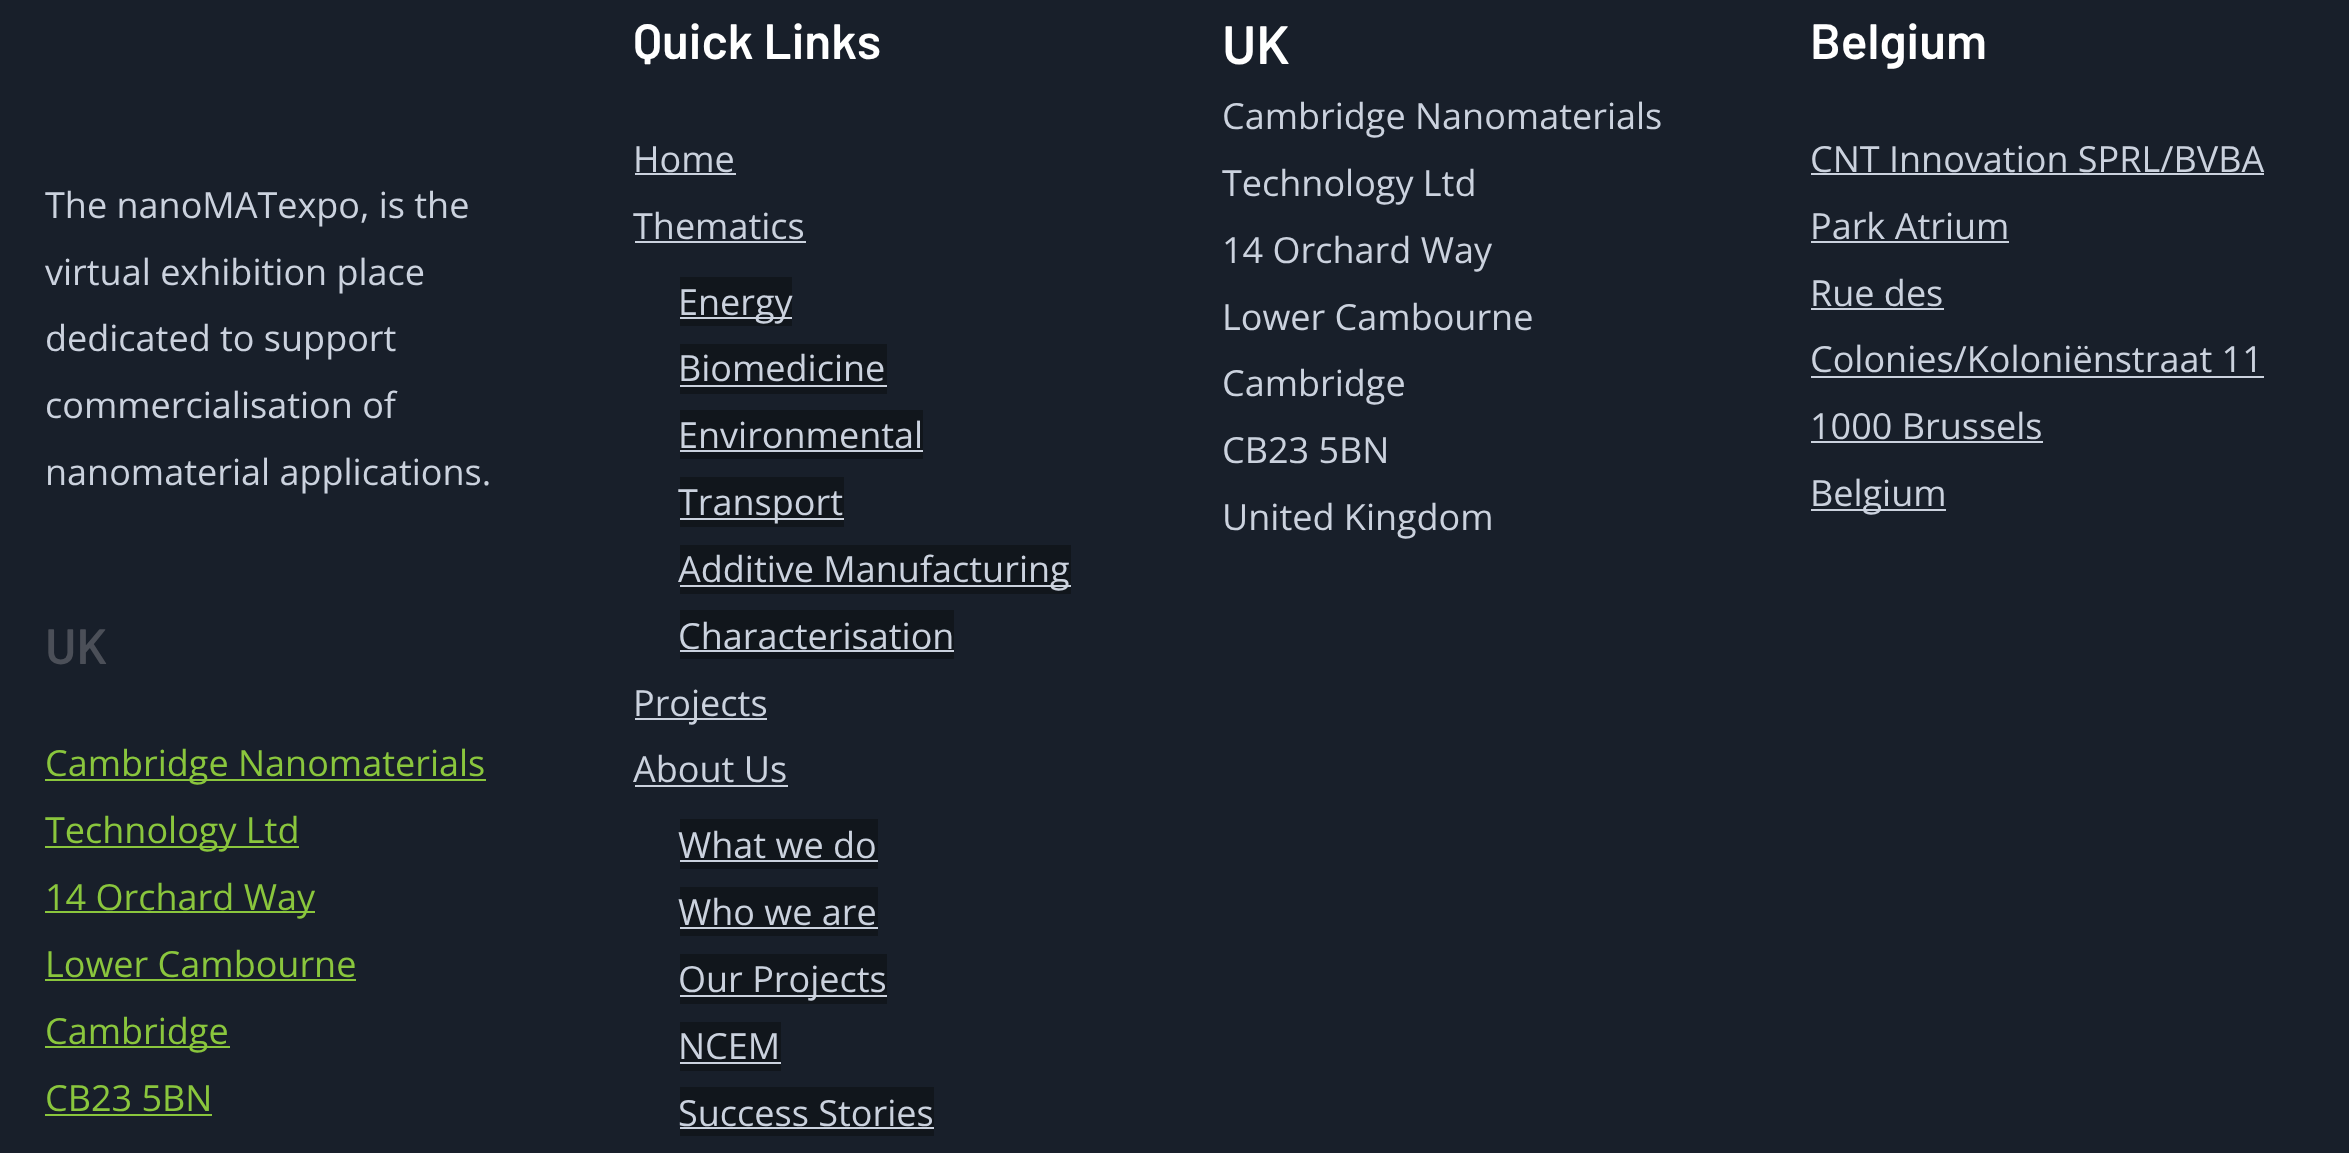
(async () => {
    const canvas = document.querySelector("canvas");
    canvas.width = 2349;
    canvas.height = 1153;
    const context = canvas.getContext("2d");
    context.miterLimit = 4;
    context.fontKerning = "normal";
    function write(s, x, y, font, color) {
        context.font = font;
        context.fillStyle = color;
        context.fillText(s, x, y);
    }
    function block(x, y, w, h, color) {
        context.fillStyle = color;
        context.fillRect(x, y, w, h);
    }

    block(0, 0, 2349, 1153, "rgb(24, 31, 42)");
    write("The nanoMATexpo, is the", 45, 218, "36px Open Sans", "rgb(203, 210, 222)");
    write("virtual exhibition place", 45, 285, "36px Open Sans", "rgb(203, 210, 222)");
    write("dedicated to support", 45, 351, "36px Open Sans", "rgb(203, 210, 222)");
    write("commercialisation of", 45, 418, "36px Open Sans", "rgb(203, 210, 222)");
    write("nanomaterial applications.", 45, 485, "36px Open Sans", "rgb(203, 210, 222)");
    write("UK", 45, 664, "600 49.5px Barlow", "rgb(75, 79, 88)");
    block(45, 779, 441, 2, "rgb(138, 198, 61)");
    write("Cambridge Nanomaterials", 45, 776, "36px Open Sans", "rgb(138, 198, 61)");
    block(45, 846, 254, 2, "rgb(138, 198, 61)");
    write("Technology Ltd", 45, 843, "36px Open Sans", "rgb(138, 198, 61)");
    block(45, 911, 270, 2, "rgb(138, 198, 61)");
    write("14 Orchard Way", 45, 910, "36px Open Sans", "rgb(138, 198, 61)");
    write("Lower Cambourne", 45, 977, "36px Open Sans", "rgb(138, 198, 61)");
    block(45, 979, 311, 2, "rgb(138, 198, 61)");
    block(45, 1046, 185, 2, "rgb(138, 198, 61)");
    write("Cambridge", 45, 1044, "36px Open Sans", "rgb(138, 198, 61)");
    write("CB23 5BN", 45, 1111, "36px Open Sans", "rgb(138, 198, 61)");
    block(45, 1114, 167, 2, "rgb(138, 198, 61)");
    write("Quick Links", 633, 59, "600 49.5px Barlow", "rgb(255, 255, 255)");
    write("Home", 633, 172, "36px Open Sans", "rgb(203, 210, 222)");
    block(635, 173, 101, 2, "rgb(203, 210, 222)");
    write("Thematics", 633, 239, "36px Open Sans", "rgb(203, 210, 222)");
    block(635, 241, 171, 2, "rgb(203, 210, 222)");
    block(680, 277, 112, 49, "rgb(17, 22, 28)");
    block(680, 317, 112, 2, "rgb(203, 210, 222)");
    write("Energy", 678, 315, "36px Open Sans", "rgb(203, 210, 222)");
    block(680, 344, 207, 50, "rgb(17, 22, 28)");
    write("Biomedicine", 678, 381, "36px Open Sans", "rgb(203, 210, 222)");
    block(680, 385, 207, 2, "rgb(203, 210, 222)");
    block(680, 410, 243, 49, "rgb(17, 22, 28)");
    write("Environmental", 678, 448, "36px Open Sans", "rgb(203, 210, 222)");
    block(680, 450, 243, 2, "rgb(203, 210, 222)");
    block(680, 477, 164, 50, "rgb(17, 22, 28)");
    block(680, 518, 164, 2, "rgb(203, 210, 222)");
    write("Transport", 678, 515, "36px Open Sans", "rgb(203, 210, 222)");
    block(680, 545, 391, 49, "rgb(17, 22, 28)");
    block(680, 585, 391, 2, "rgb(203, 210, 222)");
    write("Additive Manufacturing", 678, 582, "36px Open Sans", "rgb(203, 210, 222)");
    block(680, 610, 274, 49, "rgb(17, 22, 28)");
    write("Characterisation", 678, 649, "36px Open Sans", "rgb(203, 210, 222)");
    block(680, 650, 274, 2, "rgb(203, 210, 222)");
    block(635, 718, 132, 2, "rgb(203, 210, 222)");
    write("Projects", 633, 716, "36px Open Sans", "rgb(203, 210, 222)");
    write("About Us", 633, 782, "36px Open Sans", "rgb(203, 210, 222)");
    block(635, 785, 153, 2, "rgb(203, 210, 222)");
    block(680, 819, 198, 50, "rgb(17, 22, 28)");
    write("What we do", 678, 858, "36px Open Sans", "rgb(203, 210, 222)");
    block(680, 860, 198, 2, "rgb(203, 210, 222)");
    block(680, 887, 198, 49, "rgb(17, 22, 28)");
    write("Who we are", 678, 925, "36px Open Sans", "rgb(203, 210, 222)");
    block(680, 927, 198, 2, "rgb(203, 210, 222)");
    block(680, 954, 207, 50, "rgb(17, 22, 28)");
    block(680, 995, 207, 2, "rgb(203, 210, 222)");
    write("Our Projects", 678, 992, "36px Open Sans", "rgb(203, 210, 222)");
    block(680, 1022, 101, 49, "rgb(17, 22, 28)");
    write("NCEM", 678, 1059, "36px Open Sans", "rgb(203, 210, 222)");
    block(680, 1062, 101, 2, "rgb(203, 210, 222)");
    block(680, 1087, 254, 49, "rgb(17, 22, 28)");
    write("Success Stories", 678, 1126, "36px Open Sans", "rgb(203, 210, 222)");
    block(680, 1127, 254, 2, "rgb(203, 210, 222)");
    write("UK", 1222, 64, "600 54px Barlow", "rgb(255, 255, 255)");
    write("Cambridge Nanomaterials", 1222, 129, "36px Open Sans", "rgb(203, 210, 222)");
    write("Technology Ltd", 1222, 196, "36px Open Sans", "rgb(203, 210, 222)");
    write("14 Orchard Way", 1222, 263, "36px Open Sans", "rgb(203, 210, 222)");
    write("Lower Cambourne", 1222, 330, "36px Open Sans", "rgb(203, 210, 222)");
    write("Cambridge", 1222, 396, "36px Open Sans", "rgb(203, 210, 222)");
    write("CB23 5BN", 1222, 463, "36px Open Sans", "rgb(203, 210, 222)");
    write("United Kingdom", 1222, 530, "36px Open Sans", "rgb(203, 210, 222)");
    write("Belgium", 1810, 59, "600 49.5px Barlow", "rgb(255, 255, 255)");
    write("CNT Innovation SPRL/BVBA", 1810, 172, "36px Open Sans", "rgb(203, 210, 222)");
    block(1811, 173, 453, 2, "rgb(203, 210, 222)");
    write("Park Atrium", 1810, 239, "36px Open Sans", "rgb(203, 210, 222)");
    block(1811, 241, 198, 2, "rgb(203, 210, 222)");
    write("Rue des", 1810, 306, "36px Open Sans", "rgb(203, 210, 222)");
    block(1811, 308, 133, 2, "rgb(203, 210, 222)");
    write("Colonies/Koloniënstraat 11", 1810, 372, "36px Open Sans", "rgb(203, 210, 222)");
    block(1811, 376, 453, 2, "rgb(203, 210, 222)");
    write("1000 Brussels", 1810, 439, "36px Open Sans", "rgb(203, 210, 222)");
    block(1811, 441, 232, 2, "rgb(203, 210, 222)");
    block(1811, 509, 135, 2, "rgb(203, 210, 222)");
    write("Belgium", 1810, 506, "36px Open Sans", "rgb(203, 210, 222)");
})();
